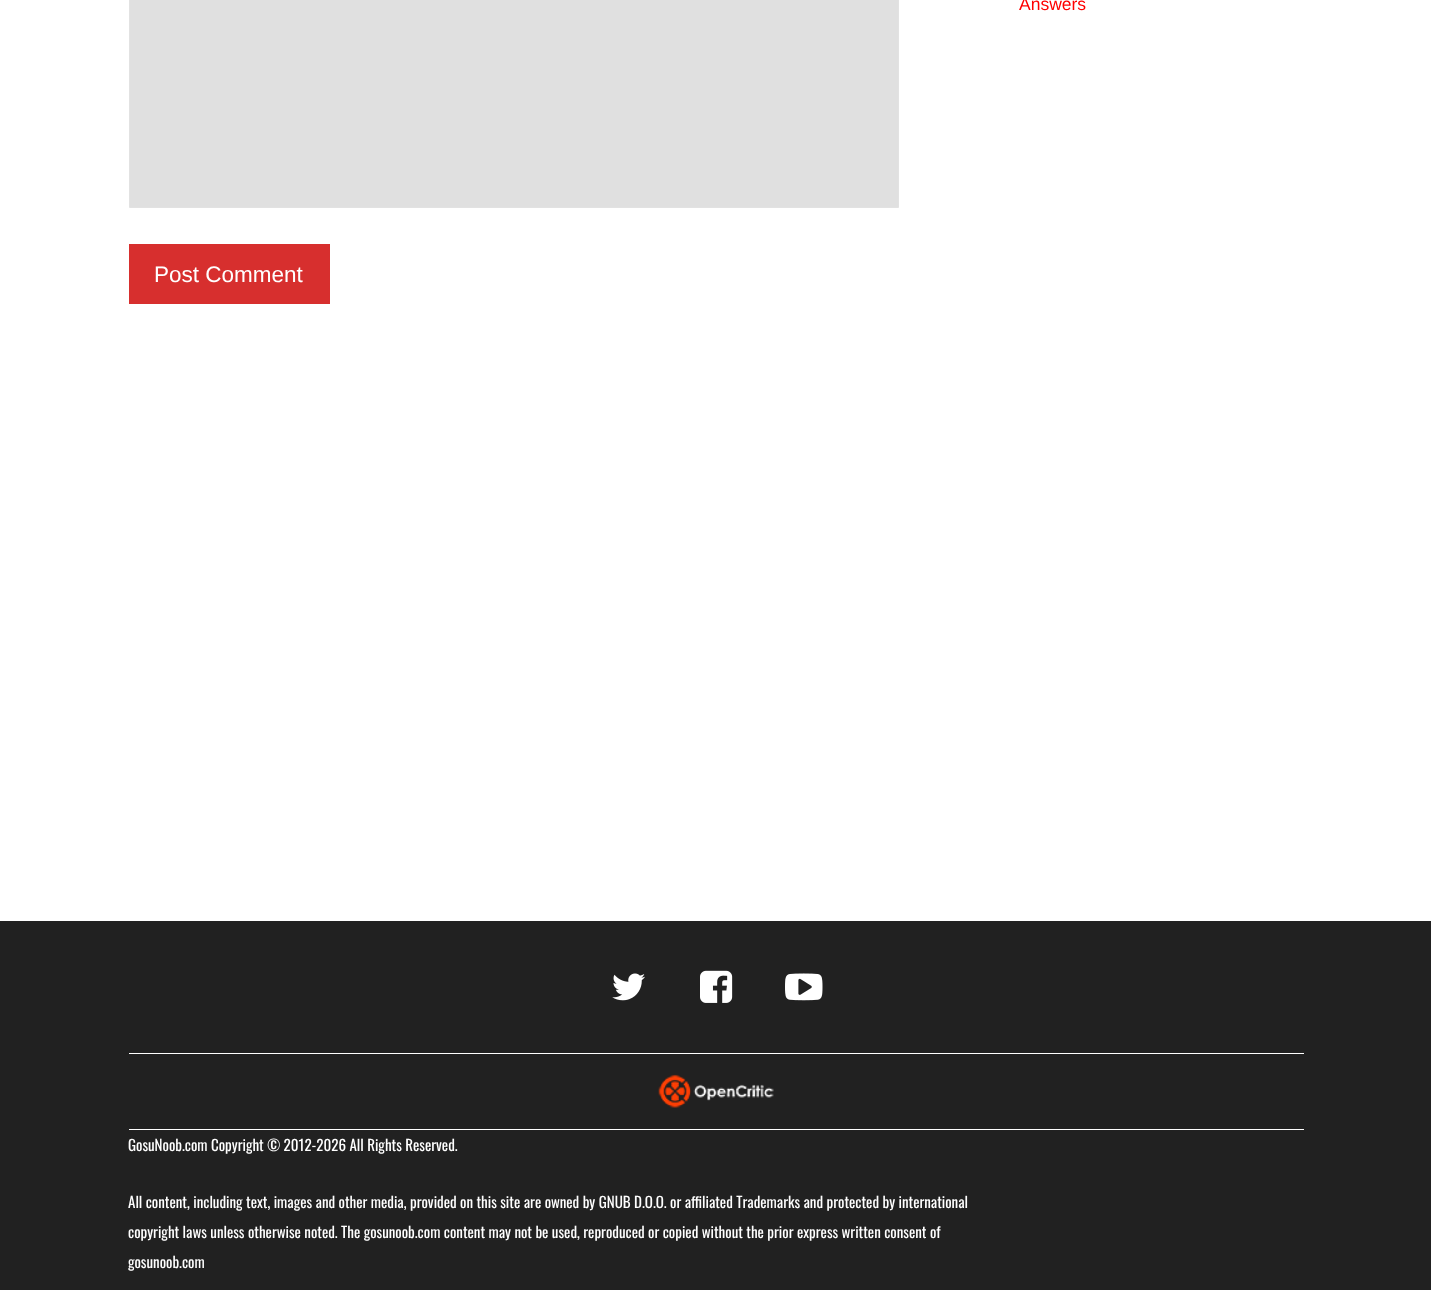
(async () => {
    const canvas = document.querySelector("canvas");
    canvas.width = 1431;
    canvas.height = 1290;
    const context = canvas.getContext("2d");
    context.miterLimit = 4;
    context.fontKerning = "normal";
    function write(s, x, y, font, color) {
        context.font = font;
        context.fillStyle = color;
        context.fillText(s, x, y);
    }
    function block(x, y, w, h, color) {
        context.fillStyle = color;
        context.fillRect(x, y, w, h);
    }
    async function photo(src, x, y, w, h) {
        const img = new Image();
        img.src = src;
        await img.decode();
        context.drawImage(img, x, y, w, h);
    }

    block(0, 0, 1431, 1290, "rgb(255, 255, 255)");
    write("Answers", 1019, 10, "17.5px Liberation Sans", "rgb(255, 0, 0)");
    context.fillStyle = "rgb(224, 224, 224)";
    context.beginPath();
    context.rect(129.5, -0.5, 769, 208);
    context.fill();
    context.strokeStyle = "rgb(226, 226, 226)";
    context.stroke();
    block(129, 244, 201, 60, "rgb(215, 47, 46)");
    write("Post Comment", 154, 282, "22.5px Liberation Sans", "rgb(255, 255, 255)");
    block(0, 921, 1431, 369, "rgb(33, 33, 33)");
    block(129, 1053, 1175, 1, "rgb(255, 255, 255)");
    await photo("media/1.png", 612, 973, 33, 28);
    await photo("media/2.png", 700, 970, 33, 33);
    await photo("media/3.png", 785, 973, 38, 28);
    block(129, 1129, 1175, 1, "rgb(255, 255, 255)");
    await photo("media/4.png", 658, 1074, 116, 34);
    write("GosuNoob.com Copyright © 2012-2026 All Rights Reserved.", 128, 1151, "15px Oswald", "rgb(255, 255, 255)");
    write("All content, including text, images and other media, provided on this site are owned by GNUB D.O.O. or affiliated Trademarks and protected by international", 128, 1208, "15px Oswald", "rgb(255, 255, 255)");
    write("copyright laws unless otherwise noted. The gosunoob.com content may not be used, reproduced or copied without the prior express written consent of", 128, 1238, "15px Oswald", "rgb(255, 255, 255)");
    write("gosunoob.com", 128, 1268, "15px Oswald", "rgb(255, 255, 255)");
})();
